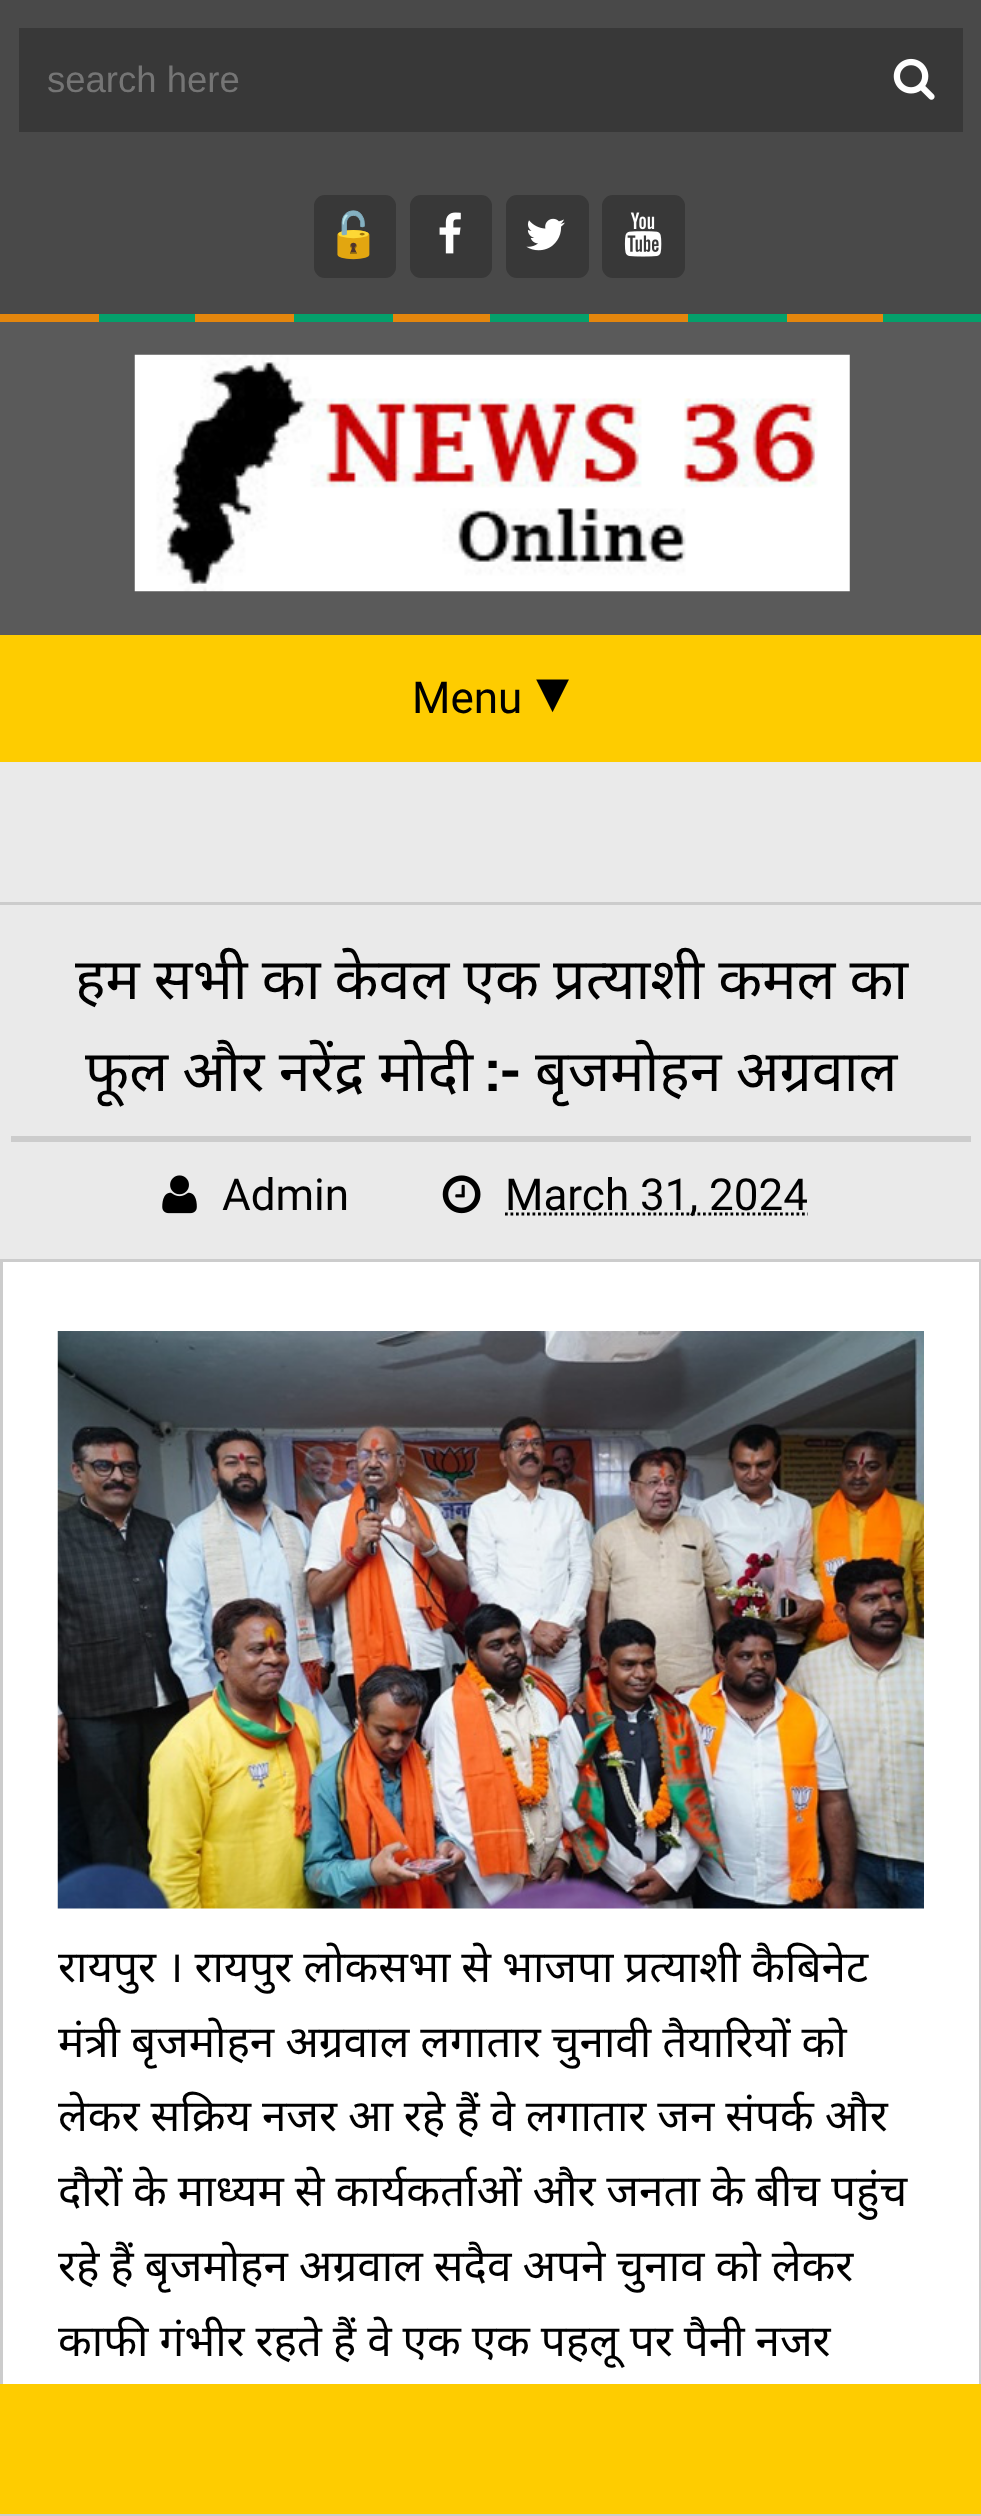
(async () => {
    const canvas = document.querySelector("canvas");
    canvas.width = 981;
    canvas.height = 2516;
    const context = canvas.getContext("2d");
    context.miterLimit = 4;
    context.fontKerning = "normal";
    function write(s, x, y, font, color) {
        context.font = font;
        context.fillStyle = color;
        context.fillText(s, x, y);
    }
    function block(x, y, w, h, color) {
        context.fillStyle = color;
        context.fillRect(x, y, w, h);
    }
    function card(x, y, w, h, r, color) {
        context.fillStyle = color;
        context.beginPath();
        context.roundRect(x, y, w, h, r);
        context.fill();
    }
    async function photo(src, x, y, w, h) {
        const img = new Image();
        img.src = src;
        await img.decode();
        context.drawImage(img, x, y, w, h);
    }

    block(0, 0, 981, 2516, "rgb(234, 234, 234)");
    block(0, 0, 981, 314, "rgb(73, 73, 73)");
    block(19, 28, 944, 104, "rgb(56, 56, 56)");
    write("search here", 47, 92, "36.5px Liberation Sans", "rgb(117, 117, 117)");
    await photo("media/1.png", 893, 58, 42, 42);
    card(314, 195, 82, 83, 11, "rgb(56, 56, 56)");
    write("🔓", 326, 250, "44px Noto Color Emoji", "rgb(255, 255, 255)");
    card(410, 195, 82, 83, 11, "rgb(56, 56, 56)");
    await photo("media/2.png", 439, 212, 22, 42);
    card(506, 195, 83, 83, 11, "rgb(56, 56, 56)");
    await photo("media/3.png", 526, 218, 39, 33);
    card(602, 195, 83, 83, 11, "rgb(56, 56, 56)");
    await photo("media/4.png", 624, 212, 38, 45);
    block(0, 314, 99, 8, "rgb(228, 134, 13)");
    block(99, 314, 96, 8, "rgb(4, 160, 107)");
    block(195, 314, 99, 8, "rgb(228, 134, 13)");
    block(294, 314, 99, 8, "rgb(4, 160, 107)");
    block(393, 314, 97, 8, "rgb(228, 134, 13)");
    block(490, 314, 99, 8, "rgb(4, 160, 107)");
    block(589, 314, 99, 8, "rgb(228, 134, 13)");
    block(688, 314, 99, 8, "rgb(4, 160, 107)");
    block(787, 314, 96, 8, "rgb(228, 134, 13)");
    block(883, 314, 98, 8, "rgb(4, 160, 107)");
    block(0, 322, 981, 313, "rgb(90, 90, 90)");
    await photo("media/5.png", 134, 354, 716, 238);
    block(0, 635, 981, 127, "rgb(254, 204, 0)");
    write("Menu", 412, 713, "44px Roboto", "rgb(0, 0, 0)");
    write("▾", 536, 713, "66px DejaVu Sans", "rgb(0, 0, 0)");
    context.strokeStyle = "rgb(204, 204, 204)";
    context.lineWidth = 3;
    context.strokeRect(1.5, 914.5, 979, 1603);
    block(0, 2384, 981, 130, "rgb(254, 204, 0)");
    block(0, 2514, 981, 2, "rgb(204, 204, 204)");
    block(3, 1262, 976, 1122, "rgb(255, 255, 255)");
    block(0, 913, 981, 346, "rgb(234, 234, 234)");
    context.strokeRect(-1.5, 903.5, 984, 357);
    block(11, 1136, 960, 6, "rgb(204, 204, 204)");
    context.wordSpacing = "-0.75px";
    write("हम सभी का केवल एक प्रत्याशी कमल का", 75, 999, "57.25px Noto Sans", "rgb(0, 0, 0)");
    context.wordSpacing = "-0.5px";
    write("फूल और नरेंद्र मोदी", 85, 1091, "57.25px Noto Sans", "rgb(0, 0, 0)");
    context.wordSpacing = "0px";
    write(":-", 486, 1091, "bold 57.25px Roboto Slab", "rgb(0, 0, 0)");
    context.wordSpacing = "-0.5px";
    write("बृजमोहन अग्रवाल", 535, 1091, "57.25px Noto Sans", "rgb(0, 0, 0)");
    await photo("media/6.png", 162, 1175, 35, 39);
    context.wordSpacing = "0px";
    write("Admin", 222, 1210, "44px Roboto", "rgb(0, 0, 0)");
    await photo("media/7.png", 442, 1175, 39, 39);
    context.beginPath();
    context.moveTo(505, 1214);
    context.lineTo(808, 1214);
    context.strokeStyle = "rgb(0, 0, 0)";
    context.lineWidth = 2.8;
    context.setLineDash([2.75, 2.75]);
    context.stroke();
    write("March 31, 2024", 505, 1210, "44px Roboto", "rgb(0, 0, 0)");
    await photo("media/8.png", 57, 1331, 867, 578);
    context.wordSpacing = "-0.5px";
    write("रायपुर । रायपुर लोकसभा से भाजपा प्रत्याशी कैबिनेट", 58, 1982, "44px Noto Sans", "rgb(0, 0, 0)");
    write("मंत्री बृजमोहन अग्रवाल लगातार चुनावी तैयारियों को", 58, 2057, "44px Noto Sans", "rgb(0, 0, 0)");
    write("लेकर सक्रिय नजर आ रहे हैं वे लगातार जन संपर्क और", 58, 2131, "44px Noto Sans", "rgb(0, 0, 0)");
    write("दौरों के माध्यम से कार्यकर्ताओं और जनता के बीच पहुंच", 58, 2206, "44px Noto Sans", "rgb(0, 0, 0)");
    write("रहे हैं बृजमोहन अग्रवाल सदैव अपने चुनाव को लेकर", 58, 2281, "44px Noto Sans", "rgb(0, 0, 0)");
    write("काफी गंभीर रहते हैं वे एक एक पहलू पर पैनी नजर", 58, 2356, "44px Noto Sans", "rgb(0, 0, 0)");
})();
